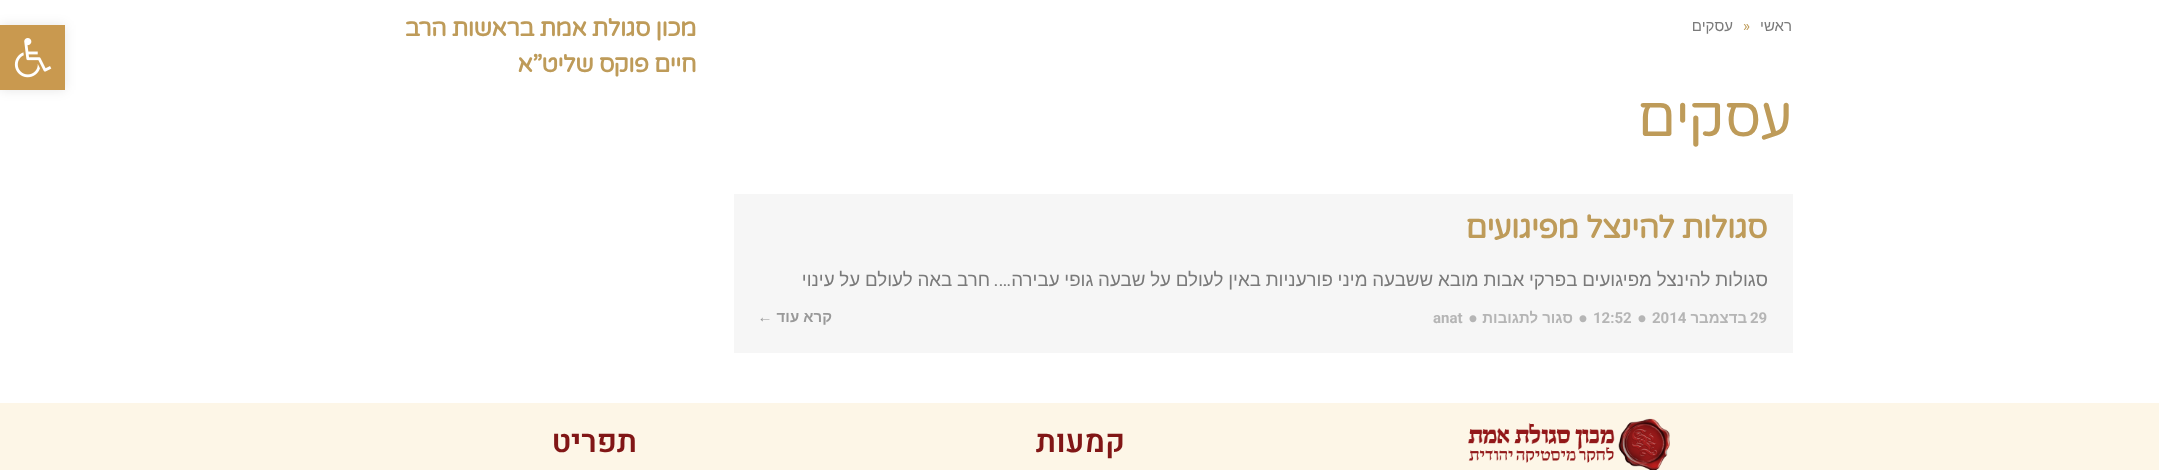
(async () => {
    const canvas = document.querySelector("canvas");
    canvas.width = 2159;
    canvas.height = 470;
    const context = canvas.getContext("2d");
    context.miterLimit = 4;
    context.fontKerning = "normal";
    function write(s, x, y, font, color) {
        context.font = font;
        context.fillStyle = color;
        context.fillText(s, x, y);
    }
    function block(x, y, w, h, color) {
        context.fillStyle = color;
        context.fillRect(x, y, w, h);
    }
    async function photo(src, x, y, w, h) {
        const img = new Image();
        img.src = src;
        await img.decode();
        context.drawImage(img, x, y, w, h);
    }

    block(0, 0, 2159, 470, "rgb(255, 255, 255)");
    context.direction = "rtl";
    write("ראשי", 1792, 31, "15px Liberation Sans", "rgb(122, 122, 122)");
    context.direction = "ltr";
    write("»", 1743, 31, "15px Roboto", "rgb(190, 155, 89)");
    context.direction = "rtl";
    write("עסקים", 1733, 31, "15px Liberation Sans", "rgb(122, 122, 122)");
    context.letterSpacing = "-0.6px";
    write("עסקים", 1792, 136, "56px Varela Round", "rgb(190, 155, 89)");
    block(734, 194, 1059, 159, "rgb(246, 246, 246)");
    write("סגולות להינצל מפיגועים", 1767, 238, "bold 31.25px Varela Round", "rgb(190, 155, 89)");
    context.letterSpacing = "0px";
    context.wordSpacing = "-0.5px";
    write("סגולות להינצל מפיגועים בפרקי אבות מובא ששבעה מיני פורעניות באין לעולם על שבעה גופי עבירה", 1768, 286, "18.75px Liberation Sans", "rgb(122, 122, 122)");
    context.wordSpacing = "0px";
    write("….", 1011, 286, "18.75px Roboto", "rgb(122, 122, 122)");
    context.wordSpacing = "-0.5px";
    write("חרב באה לעולם על עינוי", 990, 286, "18.75px Liberation Sans", "rgb(122, 122, 122)");
    context.wordSpacing = "0px";
    context.direction = "ltr";
    write("29", 1750, 323, "bold 15px Roboto", "rgb(181, 181, 181)");
    context.direction = "rtl";
    write("בדצמבר", 1747, 323, "bold 15px Liberation Sans", "rgb(181, 181, 181)");
    context.direction = "ltr";
    write("2014", 1652, 323, "bold 15px Roboto", "rgb(181, 181, 181)");
    write("⦁", 1638, 323, "bold 15px FreeSans", "rgb(181, 181, 181)");
    write("12:52", 1593, 323, "bold 15px Roboto", "rgb(181, 181, 181)");
    write("⦁", 1579, 323, "bold 15px FreeSans", "rgb(181, 181, 181)");
    context.direction = "rtl";
    write("סגור לתגובות", 1573, 323, "bold 15px Liberation Sans", "rgb(181, 181, 181)");
    context.direction = "ltr";
    write("⦁", 1469, 323, "bold 15px FreeSans", "rgb(181, 181, 181)");
    write("anat", 1433, 323, "bold 15px Roboto", "rgb(181, 181, 181)");
    context.direction = "rtl";
    write("קרא עוד ←", 832, 322, "bold 15px Liberation Sans", "rgb(153, 153, 153)");
    context.letterSpacing = "-0.6px";
    write("מכון סגולת אמת בראשות הרב", 696, 36, "bold 23.75px Varela Round", "rgb(190, 155, 89)");
    write("חיים פוקס שליט”א", 696, 72, "bold 23.75px Varela Round", "rgb(190, 155, 89)");
    block(0, 403, 2159, 67, "rgb(253, 246, 231)");
    await photo("media/1.png", 1468, 418, 202, 52);
    context.letterSpacing = "0px";
    write("קמעות", 1125, 452, "600 31.25px Heebo", "rgb(129, 22, 22)");
    write("תפריט", 637, 452, "600 31.25px Heebo", "rgb(129, 22, 22)");
    context.fillStyle = "rgba(0, 0, 0, 0.1)";
    context.filter = "blur(6px)";
    context.beginPath();
    context.rect(0, 25, 65, 65);
    context.fill();
    context.filter = "none";
    block(0, 25, 65, 65, "rgb(201, 153, 79)");
    await photo("media/2.png", 14, 38, 38, 40);
})();
